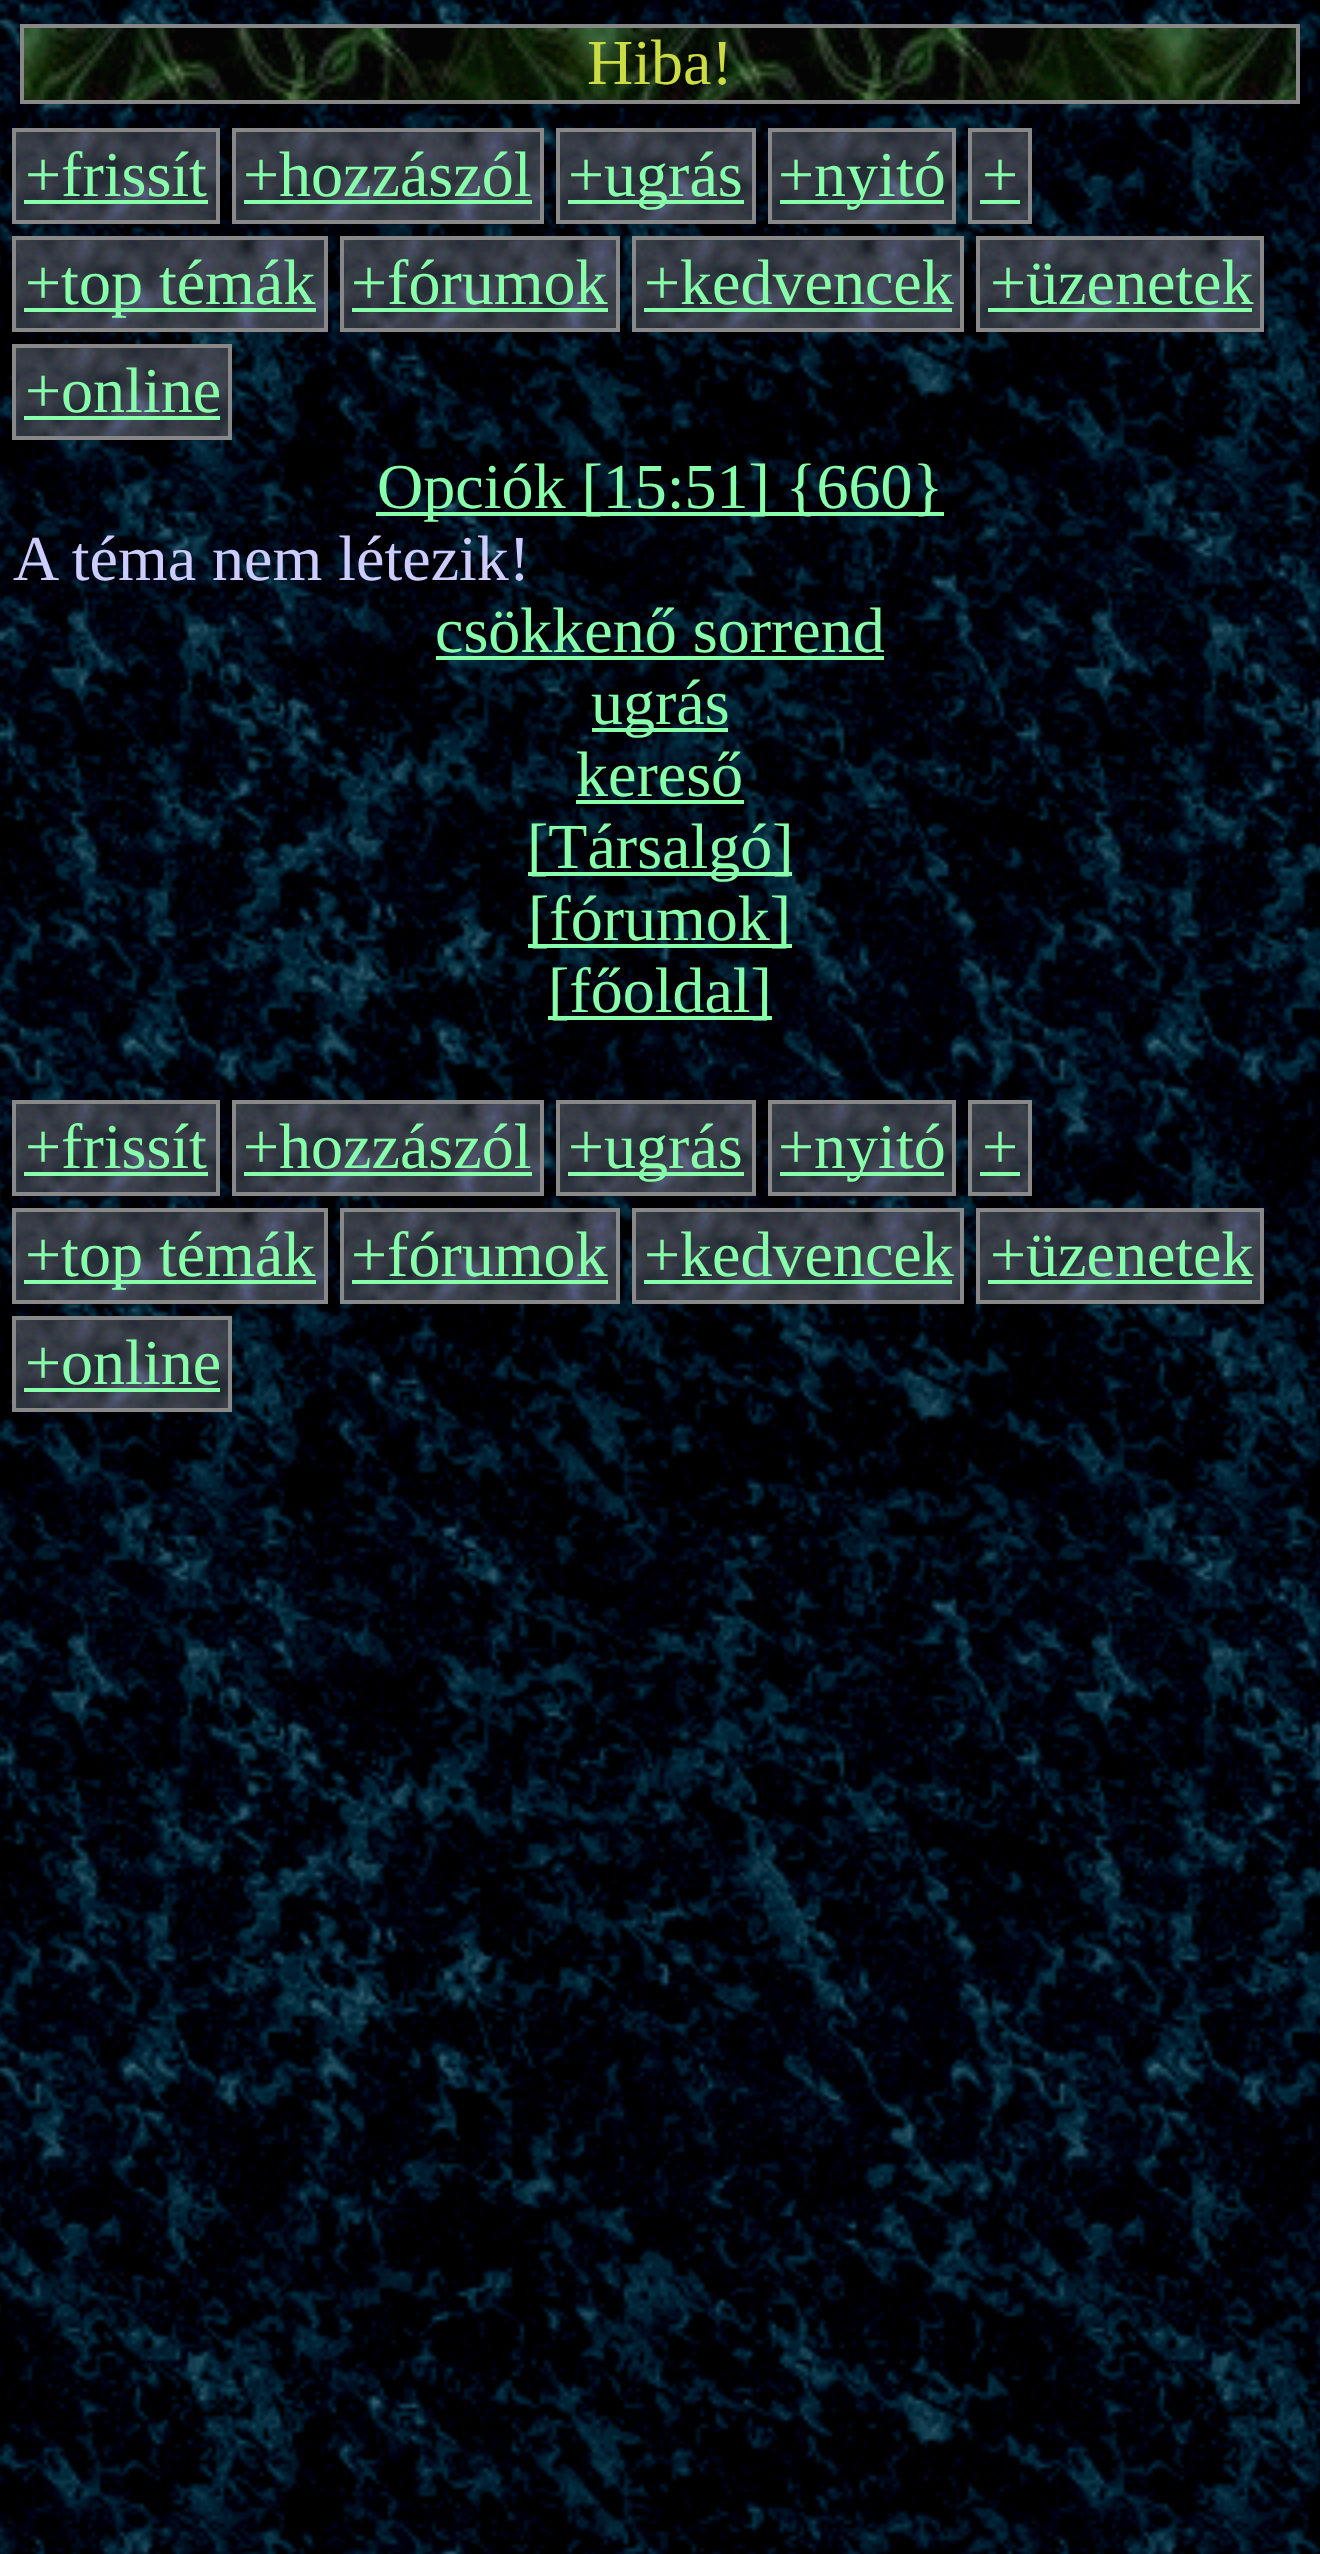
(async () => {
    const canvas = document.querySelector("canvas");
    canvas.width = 1320;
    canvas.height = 2554;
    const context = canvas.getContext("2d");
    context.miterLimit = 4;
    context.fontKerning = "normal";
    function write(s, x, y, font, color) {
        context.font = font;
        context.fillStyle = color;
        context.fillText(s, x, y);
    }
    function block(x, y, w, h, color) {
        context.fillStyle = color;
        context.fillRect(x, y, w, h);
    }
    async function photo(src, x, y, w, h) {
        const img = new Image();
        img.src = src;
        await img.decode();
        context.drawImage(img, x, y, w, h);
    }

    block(0, 0, 1320, 2554, "rgb(255, 255, 255)");
    await photo("media/1.png", 0, 0, 1320, 2554);
    await photo("media/2.png", 24, 28, 1272, 72);
    context.strokeStyle = "rgb(136, 136, 136)";
    context.lineWidth = 4;
    context.strokeRect(22, 26, 1276, 76);
    write("Hiba!", 587, 84, "64px Liberation Serif", "rgb(204, 221, 68)");
    await photo("media/3.png", 16, 132, 200, 88);
    context.strokeRect(14, 130, 204, 92);
    write("+frissít", 25, 196, "64px Liberation Serif", "rgb(136, 255, 170)");
    block(24, 200, 184, 4, "rgb(136, 255, 170)");
    await photo("media/4.png", 236, 132, 304, 88);
    context.strokeRect(234, 130, 308, 92);
    write("+hozzászól", 243, 196, "64px Liberation Serif", "rgb(136, 255, 170)");
    block(244, 200, 288, 4, "rgb(136, 255, 170)");
    await photo("media/5.png", 560, 132, 192, 88);
    context.strokeRect(558, 130, 196, 92);
    block(568, 200, 176, 4, "rgb(136, 255, 170)");
    write("+ugrás", 568, 196, "64px Liberation Serif", "rgb(136, 255, 170)");
    await photo("media/6.png", 772, 132, 180, 88);
    context.strokeRect(770, 130, 184, 92);
    block(780, 200, 164, 4, "rgb(136, 255, 170)");
    write("+nyitó", 778, 196, "64px Liberation Serif", "rgb(136, 255, 170)");
    await photo("media/7.png", 972, 132, 56, 88);
    context.strokeRect(970, 130, 60, 92);
    write("+", 982, 196, "64px Liberation Serif", "rgb(136, 255, 170)");
    block(980, 200, 40, 4, "rgb(136, 255, 170)");
    await photo("media/8.png", 16, 240, 308, 88);
    context.strokeRect(14, 238, 312, 92);
    block(24, 308, 292, 4, "rgb(136, 255, 170)");
    write("+top témák", 25, 304, "64px Liberation Serif", "rgb(136, 255, 170)");
    await photo("media/9.png", 344, 240, 272, 88);
    context.strokeRect(342, 238, 276, 92);
    write("+fórumok", 351, 304, "64px Liberation Serif", "rgb(136, 255, 170)");
    block(352, 308, 256, 4, "rgb(136, 255, 170)");
    await photo("media/10.png", 636, 240, 324, 88);
    context.strokeRect(634, 238, 328, 92);
    write("+kedvencek", 644, 304, "64px Liberation Serif", "rgb(136, 255, 170)");
    block(644, 308, 308, 4, "rgb(136, 255, 170)");
    await photo("media/11.png", 980, 240, 280, 88);
    context.strokeRect(978, 238, 284, 92);
    write("+üzenetek", 990, 304, "64px Liberation Serif", "rgb(136, 255, 170)");
    block(988, 308, 264, 4, "rgb(136, 255, 170)");
    await photo("media/12.png", 16, 348, 212, 88);
    context.strokeRect(14, 346, 216, 92);
    write("+online", 25, 412, "64px Liberation Serif", "rgb(136, 255, 170)");
    block(24, 416, 196, 4, "rgb(136, 255, 170)");
    block(376, 512, 568, 4, "rgb(136, 255, 170)");
    write("Opciók [15:51] {660}", 377, 508, "64px Liberation Serif", "rgb(136, 255, 170)");
    write("A téma nem létezik!", 13, 580, "64px Liberation Serif", "rgb(204, 204, 255)");
    write("csökkenő sorrend", 435, 652, "64px Liberation Serif", "rgb(136, 255, 170)");
    block(436, 656, 448, 4, "rgb(136, 255, 170)");
    block(592, 728, 136, 4, "rgb(136, 255, 170)");
    write("ugrás", 591, 724, "64px Liberation Serif", "rgb(136, 255, 170)");
    write("kereső", 576, 796, "64px Liberation Serif", "rgb(136, 255, 170)");
    block(576, 800, 168, 4, "rgb(136, 255, 170)");
    block(528, 872, 264, 4, "rgb(136, 255, 170)");
    write("[Társalgó]", 527, 868, "64px Liberation Serif", "rgb(136, 255, 170)");
    block(528, 944, 264, 4, "rgb(136, 255, 170)");
    write("[fórumok]", 528, 940, "64px Liberation Serif", "rgb(136, 255, 170)");
    block(548, 1016, 224, 4, "rgb(136, 255, 170)");
    write("[főoldal]", 548, 1012, "64px Liberation Serif", "rgb(136, 255, 170)");
    await photo("media/3.png", 16, 1104, 200, 88);
    context.strokeRect(14, 1102, 204, 92);
    write("+frissít", 25, 1168, "64px Liberation Serif", "rgb(136, 255, 170)");
    block(24, 1172, 184, 4, "rgb(136, 255, 170)");
    await photo("media/4.png", 236, 1104, 304, 88);
    context.strokeRect(234, 1102, 308, 92);
    write("+hozzászól", 243, 1168, "64px Liberation Serif", "rgb(136, 255, 170)");
    block(244, 1172, 288, 4, "rgb(136, 255, 170)");
    await photo("media/5.png", 560, 1104, 192, 88);
    context.strokeRect(558, 1102, 196, 92);
    block(568, 1172, 176, 4, "rgb(136, 255, 170)");
    write("+ugrás", 568, 1168, "64px Liberation Serif", "rgb(136, 255, 170)");
    await photo("media/6.png", 772, 1104, 180, 88);
    context.strokeRect(770, 1102, 184, 92);
    block(780, 1172, 164, 4, "rgb(136, 255, 170)");
    write("+nyitó", 778, 1168, "64px Liberation Serif", "rgb(136, 255, 170)");
    await photo("media/7.png", 972, 1104, 56, 88);
    context.strokeRect(970, 1102, 60, 92);
    write("+", 982, 1168, "64px Liberation Serif", "rgb(136, 255, 170)");
    block(980, 1172, 40, 4, "rgb(136, 255, 170)");
    await photo("media/8.png", 16, 1212, 308, 88);
    context.strokeRect(14, 1210, 312, 92);
    block(24, 1280, 292, 4, "rgb(136, 255, 170)");
    write("+top témák", 25, 1276, "64px Liberation Serif", "rgb(136, 255, 170)");
    await photo("media/9.png", 344, 1212, 272, 88);
    context.strokeRect(342, 1210, 276, 92);
    write("+fórumok", 351, 1276, "64px Liberation Serif", "rgb(136, 255, 170)");
    block(352, 1280, 256, 4, "rgb(136, 255, 170)");
    await photo("media/10.png", 636, 1212, 324, 88);
    context.strokeRect(634, 1210, 328, 92);
    write("+kedvencek", 644, 1276, "64px Liberation Serif", "rgb(136, 255, 170)");
    block(644, 1280, 308, 4, "rgb(136, 255, 170)");
    await photo("media/11.png", 980, 1212, 280, 88);
    context.strokeRect(978, 1210, 284, 92);
    write("+üzenetek", 990, 1276, "64px Liberation Serif", "rgb(136, 255, 170)");
    block(988, 1280, 264, 4, "rgb(136, 255, 170)");
    await photo("media/12.png", 16, 1320, 212, 88);
    context.strokeRect(14, 1318, 216, 92);
    write("+online", 25, 1384, "64px Liberation Serif", "rgb(136, 255, 170)");
    block(24, 1388, 196, 4, "rgb(136, 255, 170)");
})();
